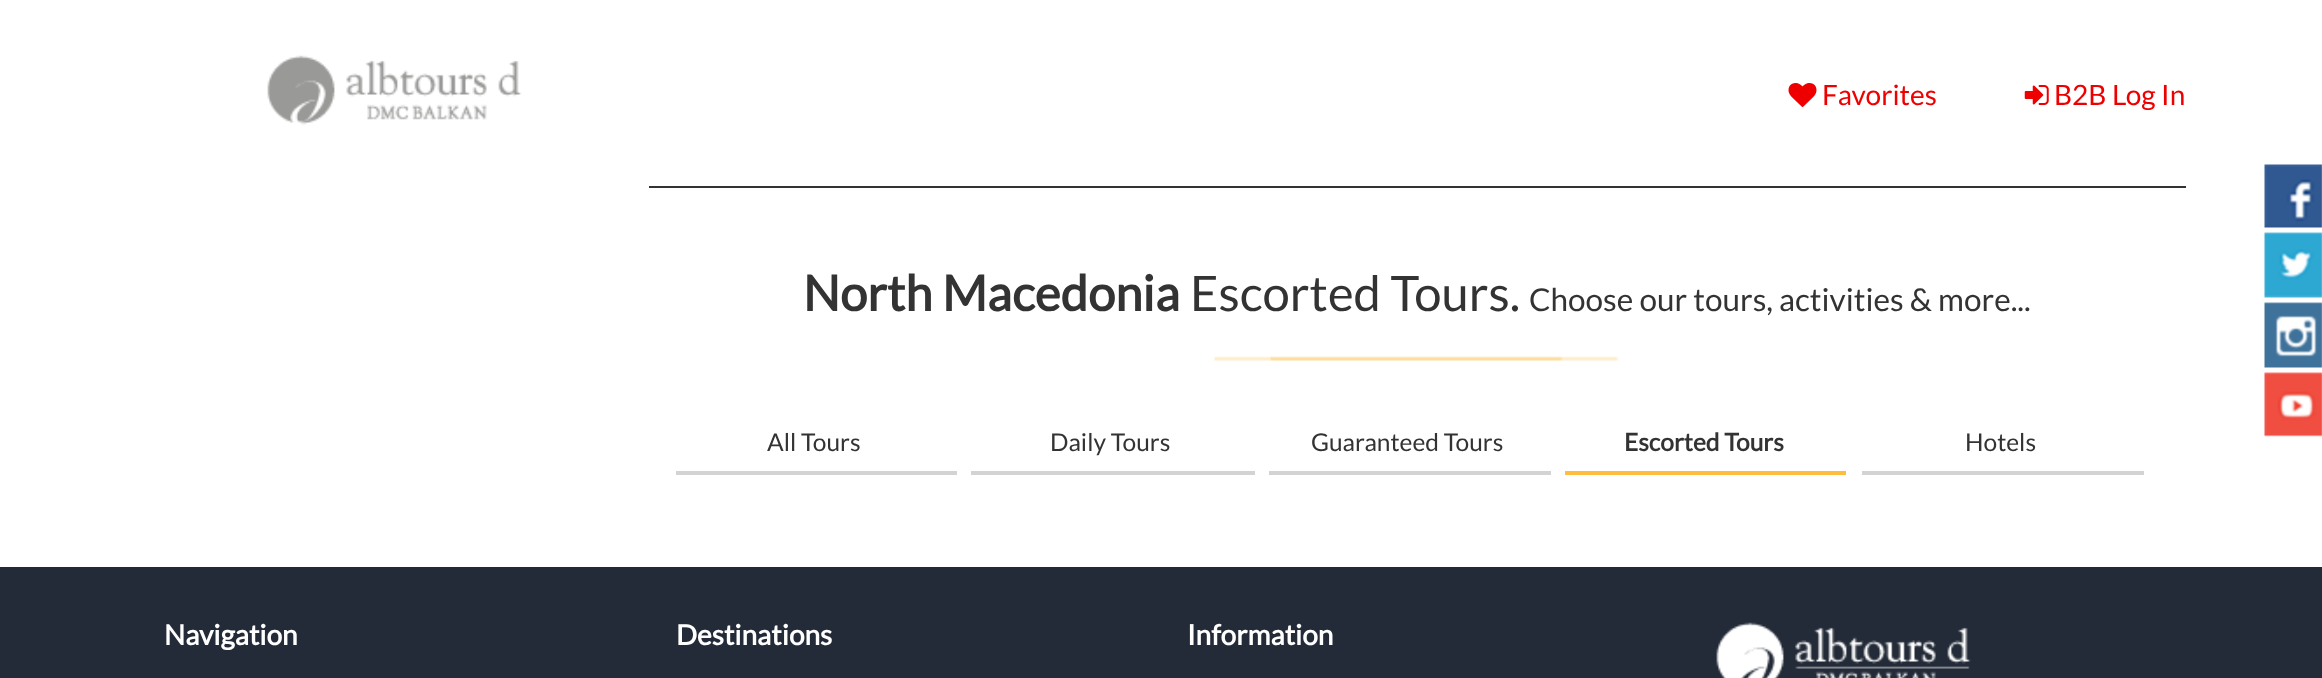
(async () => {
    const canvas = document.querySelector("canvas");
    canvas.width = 2322;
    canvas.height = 678;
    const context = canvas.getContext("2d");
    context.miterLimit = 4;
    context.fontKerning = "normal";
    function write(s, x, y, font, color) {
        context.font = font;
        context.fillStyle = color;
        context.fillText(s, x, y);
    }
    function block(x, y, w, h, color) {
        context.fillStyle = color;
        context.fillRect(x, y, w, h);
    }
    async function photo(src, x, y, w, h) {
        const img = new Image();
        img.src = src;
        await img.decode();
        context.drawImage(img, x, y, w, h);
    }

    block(0, 0, 2322, 678, "rgb(255, 255, 255)");
    await photo("media/1.png", 267, 55, 255, 70);
    block(649, 186, 1537, 2, "rgb(51, 51, 51)");
    await photo("media/2.png", 1788, 83, 29, 24);
    write("Favorites", 1822, 105, "28px Lato", "rgb(239, 0, 0)");
    await photo("media/3.png", 2024, 85, 25, 20);
    write("B2B Log In", 2054, 105, "28px Lato", "rgb(239, 0, 0)");
    write("North Macedonia", 803, 311, "bold 49px Lato", "rgb(51, 51, 51)");
    write("Escorted Tours.", 1190, 311, "49px Lato", "rgb(51, 51, 51)");
    write("Choose our tours, activities & more...", 1529, 311, "31.5px Lato", "rgb(51, 51, 51)");
    await photo("media/4.png", 1214, 356, 405, 5);
    block(676, 471, 281, 4, "rgb(211, 211, 211)");
    write("All Tours", 767, 451, "24.5px Lato", "rgb(51, 51, 51)");
    block(971, 471, 284, 4, "rgb(211, 211, 211)");
    write("Daily Tours", 1050, 451, "24.5px Lato", "rgb(51, 51, 51)");
    block(1269, 471, 282, 4, "rgb(211, 211, 211)");
    write("Guaranteed Tours", 1311, 451, "24.5px Lato", "rgb(51, 51, 51)");
    block(1565, 471, 281, 4, "rgb(254, 189, 61)");
    write("Escorted Tours", 1624, 451, "bold 24.5px Lato", "rgb(51, 51, 51)");
    block(1862, 471, 282, 4, "rgb(211, 211, 211)");
    write("Hotels", 1965, 451, "24.5px Lato", "rgb(51, 51, 51)");
    await photo("media/5.png", 2264, 164, 58, 64);
    await photo("media/6.png", 2264, 232, 58, 66);
    await photo("media/7.png", 2264, 302, 58, 66);
    await photo("media/8.png", 2264, 372, 58, 65);
    block(0, 567, 2322, 111, "rgb(36, 43, 56)");
    write("Navigation", 164, 645, "bold 28px Lato", "rgb(255, 255, 255)");
    write("Destinations", 676, 645, "bold 28px Lato", "rgb(255, 255, 255)");
    write("Information", 1187, 645, "bold 28px Lato", "rgb(255, 255, 255)");
    await photo("media/9.png", 1716, 622, 255, 56);
})();
